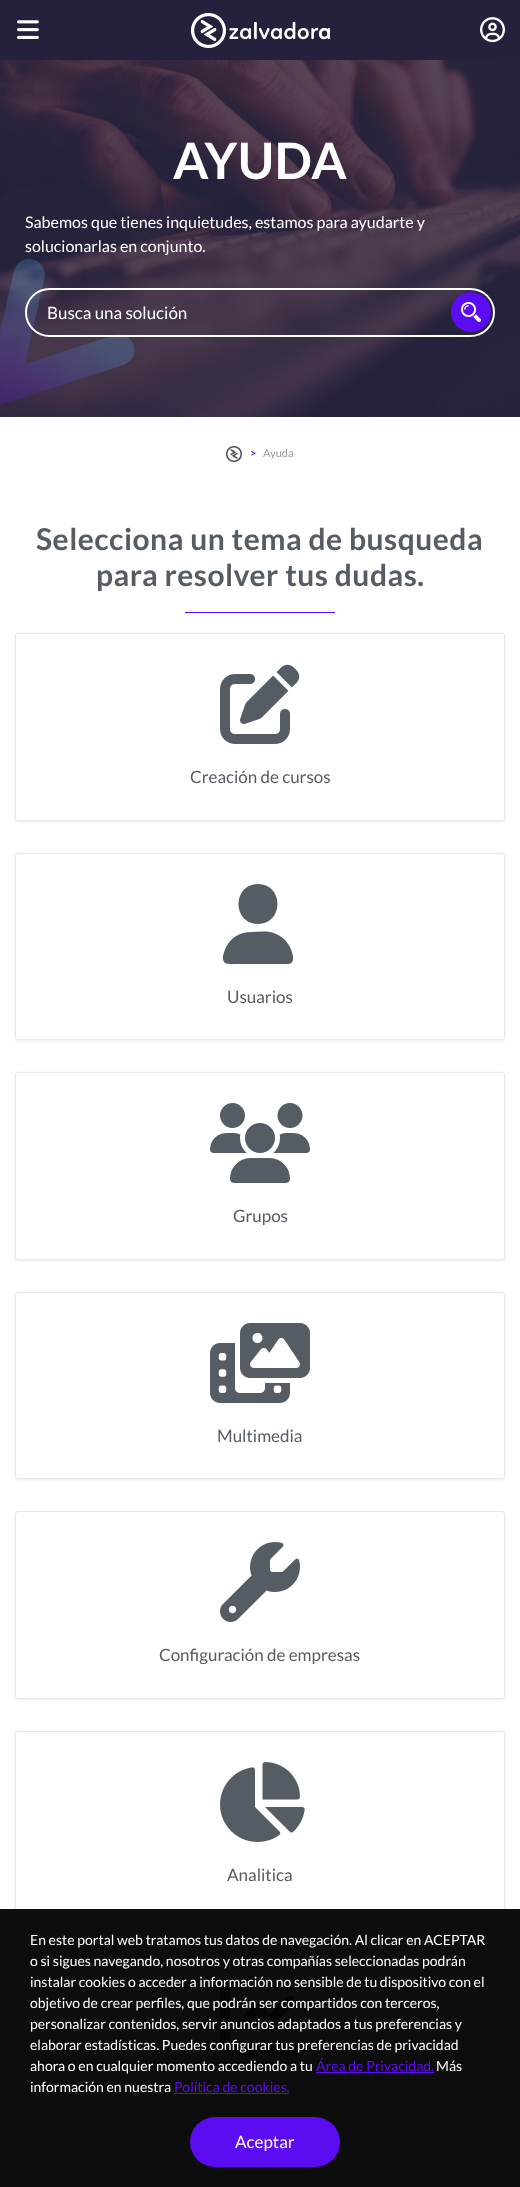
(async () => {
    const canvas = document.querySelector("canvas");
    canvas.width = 520;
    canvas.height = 2187;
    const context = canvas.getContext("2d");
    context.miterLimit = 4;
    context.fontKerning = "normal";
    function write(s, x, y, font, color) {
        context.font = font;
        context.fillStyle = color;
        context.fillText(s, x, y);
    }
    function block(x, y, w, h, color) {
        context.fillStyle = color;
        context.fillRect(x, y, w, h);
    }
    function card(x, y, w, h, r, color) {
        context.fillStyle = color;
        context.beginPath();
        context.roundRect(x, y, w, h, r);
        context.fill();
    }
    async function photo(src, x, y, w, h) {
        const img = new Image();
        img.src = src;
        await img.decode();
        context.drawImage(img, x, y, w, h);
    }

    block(0, 0, 520, 2187, "rgb(255, 255, 255)");
    block(0, 0, 520, 60, "rgb(36, 33, 60)");
    await photo("media/1.png", 17, 20, 22, 19);
    await photo("media/2.png", 191, 13, 139, 35);
    await photo("media/3.png", 480, 17, 25, 26);
    await photo("media/4.png", 0, 60, 520, 357);
    context.letterSpacing = "0.5px";
    write("AYUDA", 173, 179, "bold 50px Lato", "rgb(255, 255, 255)");
    context.letterSpacing = "0px";
    write("Sabemos que tienes inquietudes, estamos para ayudarte y", 25, 228, "16px Lato", "rgb(255, 255, 255)");
    write("solucionarlas en conjunto.", 25, 252, "16px Lato", "rgb(255, 255, 255)");
    context.beginPath();
    context.roundRect(26, 289, 468, 47, 23.5);
    context.strokeStyle = "rgb(255, 255, 255)";
    context.lineWidth = 2;
    context.stroke();
    write("Busca una solución", 47, 319, "17px Lato", "rgb(255, 255, 255)");
    context.fillStyle = "rgb(92, 12, 240)";
    context.beginPath();
    context.arc(471, 312, 20, 0, Math.PI * 2);
    context.fill();
    await photo("media/5.png", 461, 302, 20, 20);
    await photo("media/6.png", 226, 446, 16, 16);
    write(">", 250, 457, "bold 11px Lato", "rgb(92, 12, 240)");
    write("Ayuda", 263, 457, "11px Lato", "rgb(153, 153, 153)");
    context.letterSpacing = "0.5px";
    write("Selecciona un tema de busqueda", 36, 550, "bold 30px Lato", "rgb(85, 92, 99)");
    write("para resolver tus dudas.", 96, 586, "bold 30px Lato", "rgb(85, 92, 99)");
    block(185, 612, 150, 1, "rgb(92, 12, 240)");
    context.save();
    context.beginPath();
    context.moveTo(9, 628);
    context.lineTo(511, 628);
    context.lineTo(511, 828);
    context.lineTo(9, 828);
    context.closePath();
    context.moveTo(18, 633);
    context.lineTo(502, 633);
    context.bezierCurveTo(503.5, 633, 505, 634.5, 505, 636);
    context.lineTo(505, 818);
    context.bezierCurveTo(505, 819.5, 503.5, 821, 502, 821);
    context.lineTo(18, 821);
    context.bezierCurveTo(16.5, 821, 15, 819.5, 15, 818);
    context.lineTo(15, 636);
    context.bezierCurveTo(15, 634.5, 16.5, 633, 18, 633);
    context.closePath();
    context.clip("evenodd");
    context.fillStyle = "rgb(232, 232, 232)";
    context.filter = "blur(1.5px)";
    context.beginPath();
    context.roundRect(15, 634, 490, 188, 3);
    context.fill();
    context.filter = "none";
    context.restore();
    context.beginPath();
    context.roundRect(15.5, 633.5, 489, 187, 2.5);
    context.strokeStyle = "rgb(232, 232, 232)";
    context.lineWidth = 1;
    context.stroke();
    await photo("media/7.png", 220, 664, 80, 80);
    context.letterSpacing = "0px";
    write("Creación de cursos", 190, 783, "17px Lato", "rgb(85, 92, 99)");
    context.save();
    context.beginPath();
    context.moveTo(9, 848);
    context.lineTo(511, 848);
    context.lineTo(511, 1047);
    context.lineTo(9, 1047);
    context.closePath();
    context.moveTo(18, 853);
    context.lineTo(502, 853);
    context.bezierCurveTo(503.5, 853, 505, 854.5, 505, 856);
    context.lineTo(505, 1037);
    context.bezierCurveTo(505, 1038.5, 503.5, 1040, 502, 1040);
    context.lineTo(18, 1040);
    context.bezierCurveTo(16.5, 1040, 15, 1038.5, 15, 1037);
    context.lineTo(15, 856);
    context.bezierCurveTo(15, 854.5, 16.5, 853, 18, 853);
    context.closePath();
    context.clip("evenodd");
    context.fillStyle = "rgb(232, 232, 232)";
    context.filter = "blur(1.5px)";
    context.beginPath();
    context.roundRect(15, 854, 490, 187, 3);
    context.fill();
    context.filter = "none";
    context.restore();
    context.beginPath();
    context.roundRect(15.5, 853.5, 489, 186, 2.5);
    context.stroke();
    context.beginPath();
    context.moveTo(258, 924);
    context.bezierCurveTo(284, 924, 284, 884, 258, 884);
    context.bezierCurveTo(232, 884, 232, 924, 258, 924);
    context.closePath();
    context.moveTo(251, 932);
    context.bezierCurveTo(242, 932, 233, 936, 228, 944);
    context.bezierCurveTo(225, 948, 224, 952, 223, 956);
    context.bezierCurveTo(222, 966, 230, 964, 238, 964);
    context.lineTo(288, 964);
    context.bezierCurveTo(298, 964, 291, 947, 288, 944);
    context.bezierCurveTo(285, 939, 281, 936, 276, 934);
    context.bezierCurveTo(268, 930, 259, 932, 251, 932);
    context.closePath();
    context.fill();
    write("Usuarios", 227, 1003, "17px Lato", "rgb(85, 92, 99)");
    context.save();
    context.beginPath();
    context.moveTo(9, 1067);
    context.lineTo(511, 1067);
    context.lineTo(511, 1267);
    context.lineTo(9, 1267);
    context.closePath();
    context.moveTo(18, 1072);
    context.lineTo(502, 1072);
    context.bezierCurveTo(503.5, 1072, 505, 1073.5, 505, 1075);
    context.lineTo(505, 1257);
    context.bezierCurveTo(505, 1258.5, 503.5, 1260, 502, 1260);
    context.lineTo(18, 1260);
    context.bezierCurveTo(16.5, 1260, 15, 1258.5, 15, 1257);
    context.lineTo(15, 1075);
    context.bezierCurveTo(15, 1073.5, 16.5, 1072, 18, 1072);
    context.closePath();
    context.clip("evenodd");
    context.fillStyle = "rgb(232, 232, 232)";
    context.filter = "blur(1.5px)";
    context.beginPath();
    context.roundRect(15, 1073, 490, 188, 3);
    context.fill();
    context.filter = "none";
    context.restore();
    context.beginPath();
    context.roundRect(15.5, 1072.5, 489, 187, 2.5);
    context.stroke();
    await photo("media/8.png", 210, 1103, 100, 80);
    write("Grupos", 233, 1222, "17px Lato", "rgb(85, 92, 99)");
    context.save();
    context.beginPath();
    context.moveTo(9, 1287);
    context.lineTo(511, 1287);
    context.lineTo(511, 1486);
    context.lineTo(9, 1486);
    context.closePath();
    context.moveTo(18, 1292);
    context.lineTo(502, 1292);
    context.bezierCurveTo(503.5, 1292, 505, 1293.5, 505, 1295);
    context.lineTo(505, 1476);
    context.bezierCurveTo(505, 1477.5, 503.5, 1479, 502, 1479);
    context.lineTo(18, 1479);
    context.bezierCurveTo(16.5, 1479, 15, 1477.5, 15, 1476);
    context.lineTo(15, 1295);
    context.bezierCurveTo(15, 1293.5, 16.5, 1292, 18, 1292);
    context.closePath();
    context.clip("evenodd");
    context.fillStyle = "rgb(232, 232, 232)";
    context.filter = "blur(1.5px)";
    context.beginPath();
    context.roundRect(15, 1293, 490, 187, 3);
    context.fill();
    context.filter = "none";
    context.restore();
    context.beginPath();
    context.roundRect(15.5, 1292.5, 489, 186, 2.5);
    context.stroke();
    await photo("media/9.png", 210, 1323, 100, 80);
    write("Multimedia", 217, 1442, "17px Lato", "rgb(85, 92, 99)");
    context.save();
    context.beginPath();
    context.moveTo(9, 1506);
    context.lineTo(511, 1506);
    context.lineTo(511, 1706);
    context.lineTo(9, 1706);
    context.closePath();
    context.moveTo(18, 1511);
    context.lineTo(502, 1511);
    context.bezierCurveTo(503.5, 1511, 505, 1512.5, 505, 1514);
    context.lineTo(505, 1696);
    context.bezierCurveTo(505, 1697.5, 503.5, 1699, 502, 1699);
    context.lineTo(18, 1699);
    context.bezierCurveTo(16.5, 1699, 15, 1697.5, 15, 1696);
    context.lineTo(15, 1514);
    context.bezierCurveTo(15, 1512.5, 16.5, 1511, 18, 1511);
    context.closePath();
    context.clip("evenodd");
    context.fillStyle = "rgb(232, 232, 232)";
    context.filter = "blur(1.5px)";
    context.beginPath();
    context.roundRect(15, 1512, 490, 188, 3);
    context.fill();
    context.filter = "none";
    context.restore();
    context.beginPath();
    context.roundRect(15.5, 1511.5, 489, 187, 2.5);
    context.stroke();
    await photo("media/10.png", 220, 1542, 80, 80);
    write("Configuración de empresas", 159, 1661, "17px Lato", "rgb(85, 92, 99)");
    context.save();
    context.beginPath();
    context.moveTo(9, 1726);
    context.lineTo(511, 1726);
    context.lineTo(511, 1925);
    context.lineTo(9, 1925);
    context.closePath();
    context.moveTo(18, 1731);
    context.lineTo(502, 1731);
    context.bezierCurveTo(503.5, 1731, 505, 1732.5, 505, 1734);
    context.lineTo(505, 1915);
    context.bezierCurveTo(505, 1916.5, 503.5, 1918, 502, 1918);
    context.lineTo(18, 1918);
    context.bezierCurveTo(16.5, 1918, 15, 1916.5, 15, 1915);
    context.lineTo(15, 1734);
    context.bezierCurveTo(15, 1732.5, 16.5, 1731, 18, 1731);
    context.closePath();
    context.clip("evenodd");
    context.fillStyle = "rgb(232, 232, 232)";
    context.filter = "blur(1.5px)";
    context.beginPath();
    context.roundRect(15, 1732, 490, 187, 3);
    context.fill();
    context.filter = "none";
    context.restore();
    context.beginPath();
    context.roundRect(15.5, 1731.5, 489, 186, 2.5);
    context.stroke();
    await photo("media/11.png", 220, 1762, 85, 80);
    write("Analitica", 227, 1881, "17px Lato", "rgb(85, 92, 99)");
    context.save();
    context.beginPath();
    context.moveTo(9, 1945);
    context.lineTo(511, 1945);
    context.lineTo(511, 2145);
    context.lineTo(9, 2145);
    context.closePath();
    context.moveTo(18, 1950);
    context.lineTo(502, 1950);
    context.bezierCurveTo(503.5, 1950, 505, 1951.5, 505, 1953);
    context.lineTo(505, 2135);
    context.bezierCurveTo(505, 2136.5, 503.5, 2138, 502, 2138);
    context.lineTo(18, 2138);
    context.bezierCurveTo(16.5, 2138, 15, 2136.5, 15, 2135);
    context.lineTo(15, 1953);
    context.bezierCurveTo(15, 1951.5, 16.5, 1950, 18, 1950);
    context.closePath();
    context.clip("evenodd");
    context.fillStyle = "rgb(232, 232, 232)";
    context.filter = "blur(1.5px)";
    context.beginPath();
    context.roundRect(15, 1951, 490, 188, 3);
    context.fill();
    context.filter = "none";
    context.restore();
    context.beginPath();
    context.roundRect(15.5, 1950.5, 489, 187, 2.5);
    context.stroke();
    await photo("media/12.png", 220, 1986, 80, 70);
    context.beginPath();
    context.roundRect(15.5, 2170.5, 489, 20, 2.5);
    context.stroke();
    block(0, 1909, 520, 278, "rgba(0, 0, 0, 0.95)");
    write("En este portal web tratamos tus datos de navegación. Al clicar en ACEPTAR", 30, 1945, "14px Lato", "rgb(255, 255, 255)");
    write("o si sigues navegando, nosotros y otras compañías seleccionadas podrán", 30, 1966, "14px Lato", "rgb(255, 255, 255)");
    write("instalar cookies o acceder a información no sensible de tu dispositivo con el", 30, 1987, "14px Lato", "rgb(255, 255, 255)");
    write("objetivo de crear perfiles, que podrán ser compartidos con terceros,", 30, 2008, "14px Lato", "rgb(255, 255, 255)");
    write("personalizar contenidos, servir anuncios adaptados a tus preferencias y", 30, 2029, "14px Lato", "rgb(255, 255, 255)");
    write("elaborar estadísticas. Puedes configurar tus preferencias de privacidad", 30, 2050, "14px Lato", "rgb(255, 255, 255)");
    write("ahora o en cualquier momento accediendo a tu", 30, 2071, "14px Lato", "rgb(255, 255, 255)");
    write("Área de Privacidad.", 316, 2071, "14px Lato", "rgb(92, 12, 240)");
    block(316, 2072, 118, 1, "rgb(92, 12, 240)");
    write("Más", 436, 2071, "14px Lato", "rgb(255, 255, 255)");
    write("información en nuestra", 30, 2092, "14px Lato", "rgb(255, 255, 255)");
    write("Política de cookies.", 174, 2092, "14px Lato", "rgb(92, 12, 240)");
    block(174, 2093, 115, 1, "rgb(92, 12, 240)");
    card(190, 2117, 150, 50, 25, "rgb(92, 12, 240)");
    write("Aceptar", 235, 2148, "17px Lato", "rgb(255, 255, 255)");
})();
